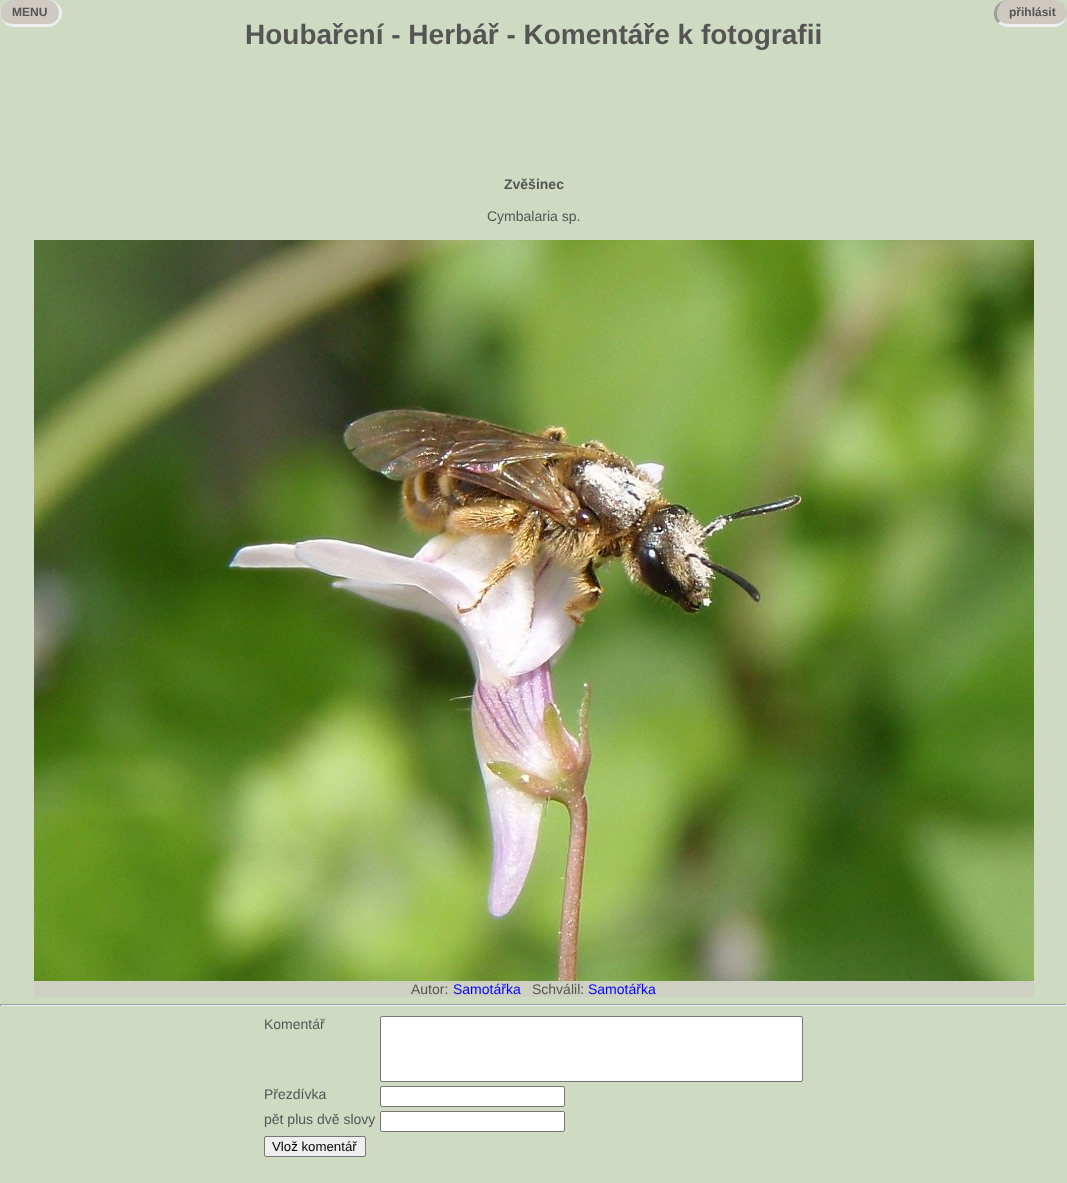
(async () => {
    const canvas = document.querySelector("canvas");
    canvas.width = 1067;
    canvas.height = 1183;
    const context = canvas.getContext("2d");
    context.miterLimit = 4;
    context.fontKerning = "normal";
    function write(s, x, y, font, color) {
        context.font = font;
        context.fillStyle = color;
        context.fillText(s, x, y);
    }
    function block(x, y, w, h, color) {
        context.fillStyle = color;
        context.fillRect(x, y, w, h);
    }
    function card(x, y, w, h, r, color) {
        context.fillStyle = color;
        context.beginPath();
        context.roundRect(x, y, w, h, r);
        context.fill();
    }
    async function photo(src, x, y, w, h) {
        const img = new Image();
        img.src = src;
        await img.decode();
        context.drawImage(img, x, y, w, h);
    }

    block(0, 0, 1067, 1183, "rgb(206, 218, 194)");
    card(0, 0, 62, 27, 13.5, "rgb(206, 202, 194)");
    context.fillStyle = "rgb(238, 238, 238)";
    context.beginPath();
    context.moveTo(14, 0);
    context.lineTo(51, 0);
    context.bezierCurveTo(56, 1, 61, 6, 62, 11);
    context.bezierCurveTo(63, 18, 58, 25, 51, 27);
    context.lineTo(14, 27);
    context.bezierCurveTo(-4, 26, -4, 0, 14, 0);
    context.closePath();
    context.moveTo(14, 0);
    context.lineTo(48, 0);
    context.bezierCurveTo(54, 0, 59, 6, 59, 14);
    context.bezierCurveTo(59, 19, 54, 24, 48, 24);
    context.lineTo(14, 24);
    context.bezierCurveTo(6, 24, 0, 19, 0, 14);
    context.bezierCurveTo(0, 6, 6, 0, 14, 0);
    context.closePath();
    context.fill("evenodd");
    write("MENU", 12, 16, "bold 12px Liberation Sans", "rgb(85, 85, 85)");
    card(994, 0, 73, 27, 13.5, "rgb(206, 202, 194)");
    context.fillStyle = "rgb(238, 238, 238)";
    context.beginPath();
    context.moveTo(1054, 27);
    context.bezierCurveTo(1061, 27, 1067, 21, 1067, 14);
    context.bezierCurveTo(1067, 19, 1061, 24, 1054, 24);
    context.lineTo(1008, 24);
    context.bezierCurveTo(1005, 24, 1002, 23, 1000, 21);
    context.lineTo(998, 23);
    context.bezierCurveTo(1000, 25, 1004, 27, 1008, 27);
    context.closePath();
    context.fill();
    context.fillStyle = "rgb(159, 159, 159)";
    context.beginPath();
    context.moveTo(1008, 0);
    context.bezierCurveTo(998.5, 0, 993.5, 14.5, 1000, 21);
    context.lineTo(998, 23);
    context.bezierCurveTo(989, 14.5, 996, 0, 1008, 0);
    context.closePath();
    context.fill();
    write("přihlásit", 1009, 16, "bold 12px Liberation Sans", "rgb(85, 85, 85)");
    write("Houbaření - Herbář - Komentáře k fotografii", 245, 44, "bold 28px Liberation Sans", "rgb(85, 85, 85)");
    write("Zvěšinec", 504, 189, "bold 14px Liberation Sans", "rgb(85, 85, 85)");
    write("Cymbalaria sp.", 487, 221, "14px Liberation Sans", "rgb(85, 85, 85)");
    await photo("media/1.png", 34, 240, 1000, 741);
    block(34, 981, 1000, 16, "rgb(206, 209, 194)");
    write("Autor:", 411, 994, "14px Liberation Sans", "rgb(85, 85, 85)");
    write("Samotářka", 453, 994, "14px Liberation Sans", "rgb(0, 0, 255)");
    write("Schválil:", 532, 994, "14px Liberation Sans", "rgb(85, 85, 85)");
    write("Samotářka", 588, 994, "14px Liberation Sans", "rgb(0, 0, 255)");
    block(0, 1004, 1067, 1, "rgb(159, 159, 159)");
    block(1066, 1004, 1, 2, "rgb(238, 238, 238)");
    block(0, 1005, 1067, 1, "rgb(238, 238, 238)");
    block(0, 1004, 1, 2, "rgb(159, 159, 159)");
    write("Komentář", 264, 1029, "14px Liberation Sans", "rgb(85, 85, 85)");
    context.fillStyle = "rgb(255, 255, 255)";
    context.beginPath();
    context.roundRect(380.5, 1016.5, 422, 65, 1.5);
    context.fill();
    context.strokeStyle = "rgb(118, 118, 118)";
    context.stroke();
    write("Přezdívka", 264, 1099, "14px Liberation Sans", "rgb(85, 85, 85)");
    context.fillStyle = "rgb(255, 255, 255)";
    context.beginPath();
    context.roundRect(380.5, 1086.5, 184, 20, 1.5);
    context.fill();
    context.stroke();
    write("pět plus dvě slovy", 264, 1124, "14px Liberation Sans", "rgb(85, 85, 85)");
    context.fillStyle = "rgb(255, 255, 255)";
    context.beginPath();
    context.roundRect(380.5, 1111.5, 184, 20, 1.5);
    context.fill();
    context.stroke();
    context.fillStyle = "rgb(239, 239, 239)";
    context.beginPath();
    context.roundRect(264.5, 1136.5, 101, 20, 1.5);
    context.fill();
    context.stroke();
    write("Vlož komentář", 272, 1151, "13.25px Liberation Sans", "rgb(0, 0, 0)");
})();
